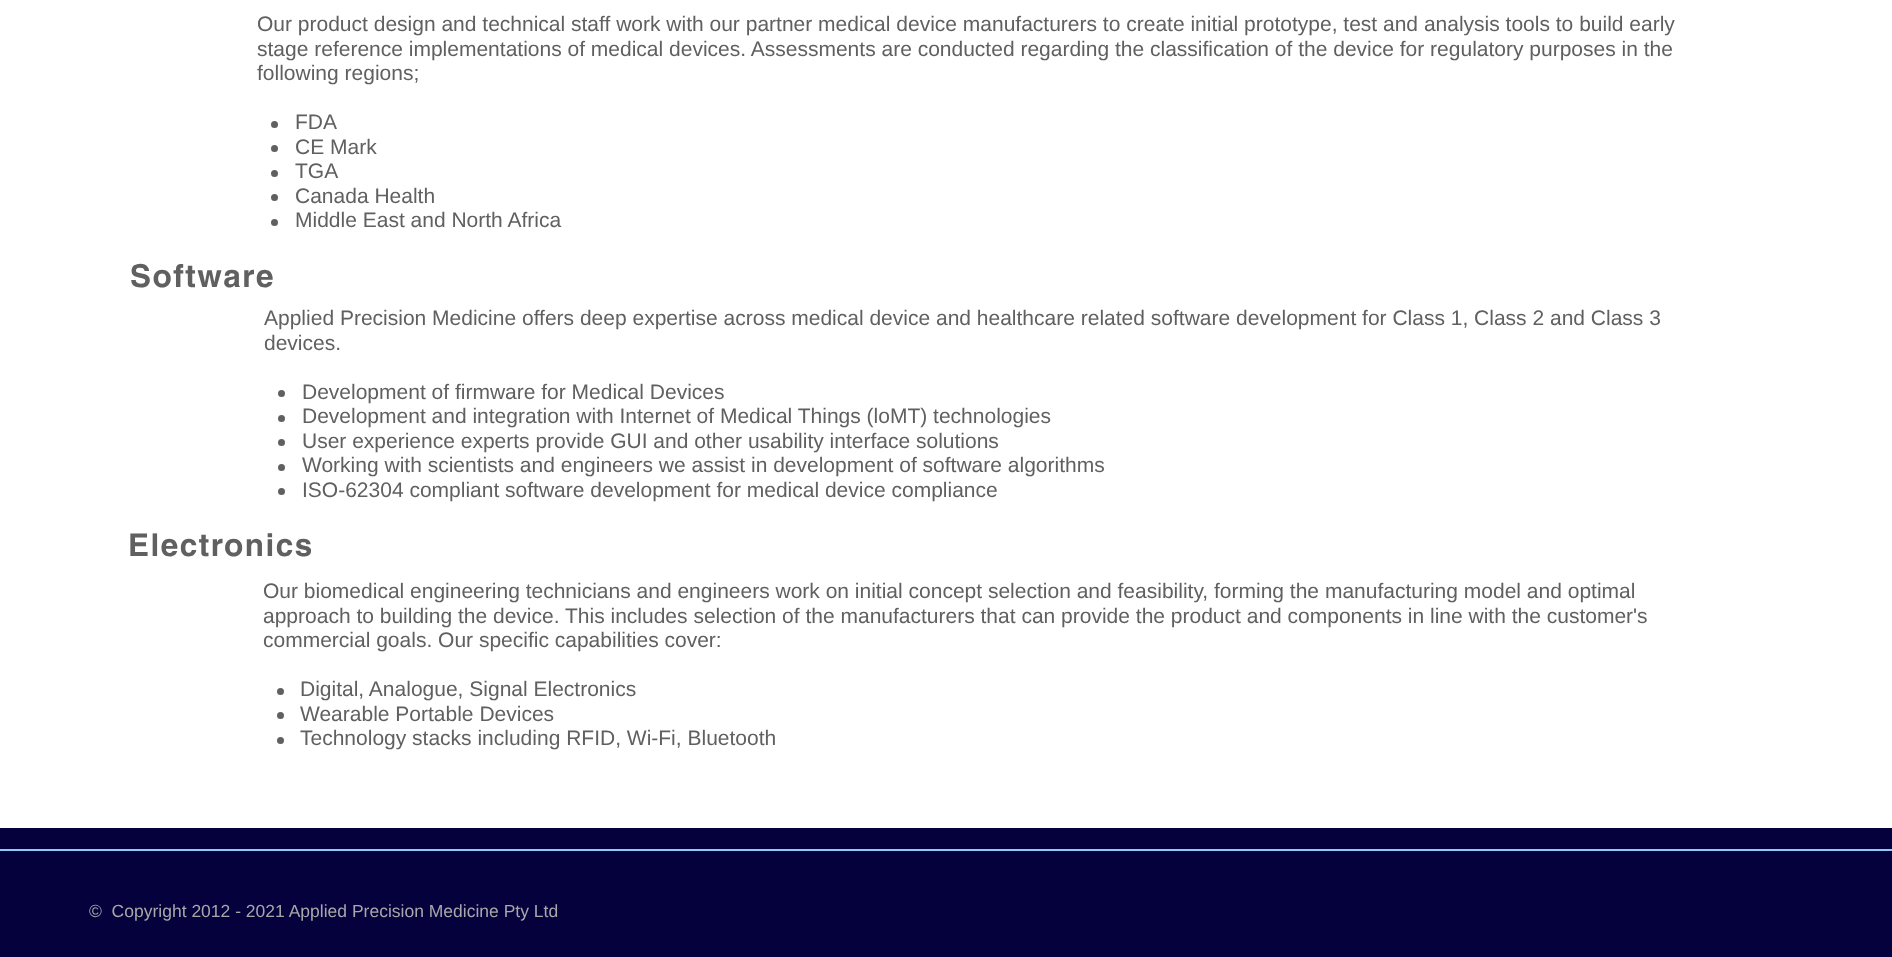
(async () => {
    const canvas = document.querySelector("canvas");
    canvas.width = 1892;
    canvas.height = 957;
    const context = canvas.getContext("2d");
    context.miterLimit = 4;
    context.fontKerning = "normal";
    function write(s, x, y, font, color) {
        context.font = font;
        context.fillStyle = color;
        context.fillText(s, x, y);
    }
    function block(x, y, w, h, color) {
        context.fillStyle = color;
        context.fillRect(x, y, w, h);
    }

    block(0, 0, 1892, 957, "rgb(255, 255, 255)");
    write("Our product design and technical staff work with our partner medical device manufacturers to create initial prototype, test and analysis tools to build early", 257, 31, "21px Liberation Sans", "rgb(96, 96, 96)");
    write("stage reference implementations of medical devices. Assessments are conducted regarding the classification of the device for regulatory purposes in the", 257, 56, "21px Liberation Sans", "rgb(96, 96, 96)");
    write("following regions;", 257, 80, "21px Liberation Sans", "rgb(96, 96, 96)");
    context.beginPath();
    context.arc(274.5, 124.5, 3.5, 0, Math.PI * 2);
    context.fill();
    write("FDA", 295, 129, "21px Liberation Sans", "rgb(96, 96, 96)");
    context.beginPath();
    context.arc(274.5, 148.5, 3.5, 0, Math.PI * 2);
    context.fill();
    write("CE Mark", 295, 154, "21px Liberation Sans", "rgb(96, 96, 96)");
    context.beginPath();
    context.arc(274.5, 173.5, 3.5, 0, Math.PI * 2);
    context.fill();
    write("TGA", 295, 178, "21px Liberation Sans", "rgb(96, 96, 96)");
    context.beginPath();
    context.arc(274.5, 197.5, 3.5, 0, Math.PI * 2);
    context.fill();
    write("Canada Health", 295, 203, "21px Liberation Sans", "rgb(96, 96, 96)");
    context.beginPath();
    context.arc(274.5, 222.5, 3.5, 0, Math.PI * 2);
    context.fill();
    write("Middle East and North Africa", 295, 227, "21px Liberation Sans", "rgb(96, 96, 96)");
    context.letterSpacing = "1.5px";
    write("Software", 130, 287, "bold 31.5px helvetica", "rgb(96, 96, 96)");
    context.letterSpacing = "0px";
    write("Applied Precision Medicine offers deep expertise across medical device and healthcare related software development for Class 1, Class 2 and Class 3", 264, 325, "21px Liberation Sans", "rgb(96, 96, 96)");
    write("devices.", 264, 350, "21px Liberation Sans", "rgb(96, 96, 96)");
    context.beginPath();
    context.arc(281.5, 393.5, 3.5, 0, Math.PI * 2);
    context.fill();
    write("Development of firmware for Medical Devices", 302, 399, "21px Liberation Sans", "rgb(96, 96, 96)");
    context.beginPath();
    context.arc(281.5, 418.5, 3.5, 0, Math.PI * 2);
    context.fill();
    write("Development and integration with Internet of Medical Things (loMT) technologies", 302, 423, "21px Liberation Sans", "rgb(96, 96, 96)");
    context.beginPath();
    context.arc(281.5, 442.5, 3.5, 0, Math.PI * 2);
    context.fill();
    write("User experience experts provide GUI and other usability interface solutions", 302, 448, "21px Liberation Sans", "rgb(96, 96, 96)");
    context.beginPath();
    context.arc(281.5, 467.5, 3.5, 0, Math.PI * 2);
    context.fill();
    write("Working with scientists and engineers we assist in development of software algorithms", 302, 472, "21px Liberation Sans", "rgb(96, 96, 96)");
    context.beginPath();
    context.arc(281.5, 491.5, 3.5, 0, Math.PI * 2);
    context.fill();
    write("ISO-62304 compliant software development for medical device compliance", 302, 497, "21px Liberation Sans", "rgb(96, 96, 96)");
    context.letterSpacing = "1.5px";
    write("Electronics", 128, 556, "bold 31.5px helvetica", "rgb(96, 96, 96)");
    context.letterSpacing = "0px";
    write("Our biomedical engineering technicians and engineers work on initial concept selection and feasibility, forming the manufacturing model and optimal", 263, 598, "21px Liberation Sans", "rgb(96, 96, 96)");
    write("approach to building the device. This includes selection of the manufacturers that can provide the product and components in line with the customer's", 263, 623, "21px Liberation Sans", "rgb(96, 96, 96)");
    write("commercial goals. Our specific capabilities cover:", 263, 647, "21px Liberation Sans", "rgb(96, 96, 96)");
    context.beginPath();
    context.arc(280.5, 691.5, 3.5, 0, Math.PI * 2);
    context.fill();
    write("Digital, Analogue, Signal Electronics", 300, 696, "21px Liberation Sans", "rgb(96, 96, 96)");
    context.beginPath();
    context.arc(280.5, 715.5, 3.5, 0, Math.PI * 2);
    context.fill();
    write("Wearable Portable Devices", 300, 721, "21px Liberation Sans", "rgb(96, 96, 96)");
    context.beginPath();
    context.arc(280.5, 740.5, 3.5, 0, Math.PI * 2);
    context.fill();
    write("Technology stacks including RFID, Wi-Fi, Bluetooth", 300, 745, "21px Liberation Sans", "rgb(96, 96, 96)");
    block(0, 828, 1892, 129, "rgb(5, 1, 61)");
    block(0, 849, 1892, 2, "rgb(142, 201, 250)");
    write("©  Copyright 2012 - 2021 Applied Precision Medicine Pty Ltd", 89, 917, "17.5px Liberation Sans", "rgb(168, 168, 168)");
})();
